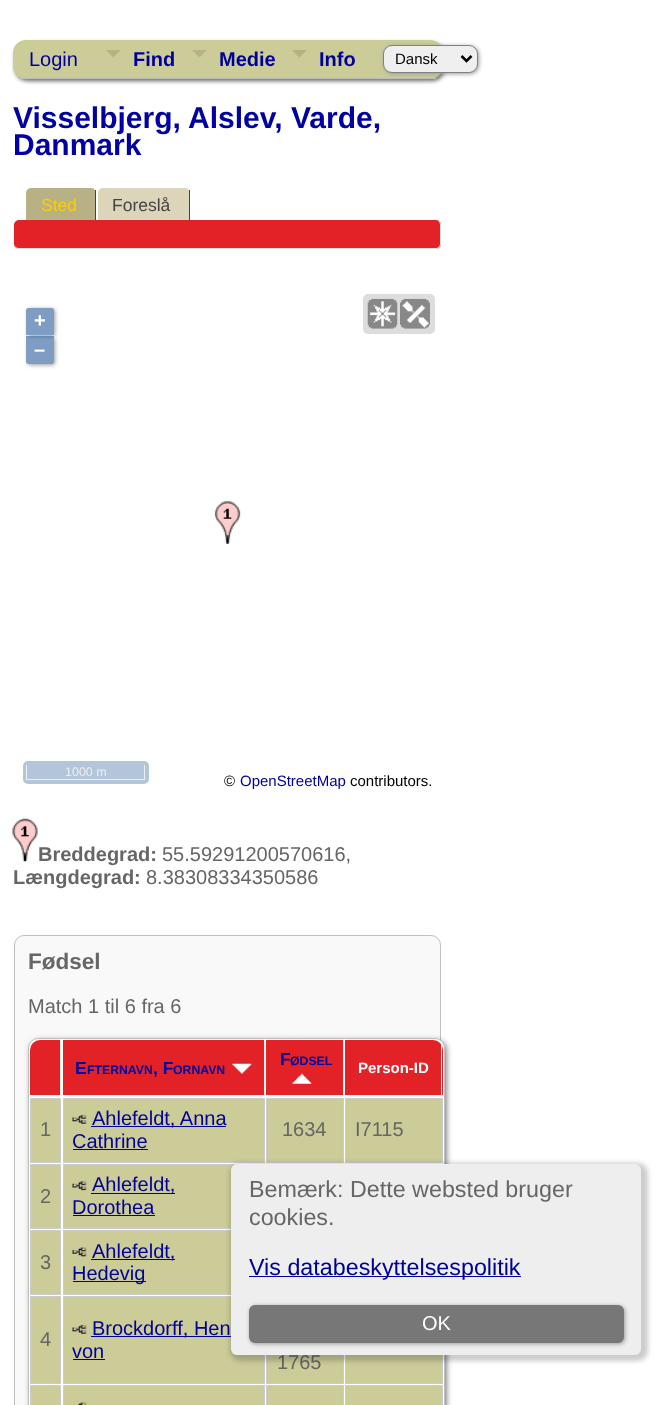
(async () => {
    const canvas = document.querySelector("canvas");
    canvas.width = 661;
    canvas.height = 1405;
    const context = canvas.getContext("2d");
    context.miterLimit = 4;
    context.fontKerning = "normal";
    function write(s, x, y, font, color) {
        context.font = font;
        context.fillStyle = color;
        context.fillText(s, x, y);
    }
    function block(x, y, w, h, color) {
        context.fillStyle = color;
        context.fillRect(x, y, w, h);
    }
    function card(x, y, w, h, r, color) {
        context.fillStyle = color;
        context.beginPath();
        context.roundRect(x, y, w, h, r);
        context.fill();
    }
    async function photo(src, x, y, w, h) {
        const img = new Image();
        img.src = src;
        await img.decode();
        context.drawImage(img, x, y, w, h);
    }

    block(0, 0, 661, 1405, "rgb(255, 255, 255)");
    context.fillStyle = "rgb(102, 102, 102)";
    context.filter = "blur(2px)";
    context.beginPath();
    context.roundRect(15, 43, 430, 38, 13);
    context.fill();
    context.filter = "none";
    card(13, 40, 430, 39, 13, "rgb(204, 204, 153)");
    block(19, 78, 417, 1, "rgb(187, 187, 187)");
    write("Login", 29, 66, "20px Liberation Sans", "rgb(0, 0, 153)");
    await photo("media/1.png", 106, 50, 14, 8);
    write("Find", 133, 66, "bold 20px Liberation Sans", "rgb(0, 0, 153)");
    await photo("media/2.png", 192, 50, 15, 8);
    write("Medie", 219, 66, "bold 20px Liberation Sans", "rgb(0, 0, 153)");
    await photo("media/3.png", 292, 50, 15, 8);
    write("Info", 319, 66, "bold 20px Liberation Sans", "rgb(0, 0, 153)");
    context.fillStyle = "rgb(153, 153, 153)";
    context.filter = "blur(2px)";
    context.beginPath();
    context.roundRect(384, 46, 95, 28, 9);
    context.fill();
    context.filter = "none";
    context.fillStyle = "rgb(239, 239, 239)";
    context.beginPath();
    context.roundRect(383.5, 45.5, 94, 27, 8.5);
    context.fill();
    context.strokeStyle = "rgb(128, 128, 128)";
    context.stroke();
    context.beginPath();
    context.moveTo(461.5, 56);
    context.lineTo(466.5, 61);
    context.lineTo(471.5, 56);
    context.strokeStyle = "rgb(0, 0, 0)";
    context.lineWidth = 2.5;
    context.stroke();
    write("Dansk", 395, 64, "15px Liberation Sans", "rgb(0, 0, 0)");
    write("Visselbjerg, Alslev, Varde,", 13, 128, "bold 30px Liberation Sans", "rgb(0, 0, 163)");
    write("Danmark", 13, 155, "bold 30px Liberation Sans", "rgb(0, 0, 163)");
    context.fillStyle = "rgb(185, 177, 134)";
    context.beginPath();
    context.roundRect(26, 188, 70, 32, [5, 5, 0, 0]);
    context.fill();
    block(95, 190, 1, 30, "rgb(68, 68, 68)");
    write("Sted", 41, 211, "17.5px Liberation Sans", "rgb(255, 204, 0)");
    context.fillStyle = "rgb(220, 213, 185)";
    context.beginPath();
    context.roundRect(98, 188, 92, 32, [5, 5, 0, 0]);
    context.fill();
    block(189, 190, 1, 30, "rgb(68, 68, 68)");
    write("Foreslå", 112, 211, "17.5px Liberation Sans", "rgb(68, 68, 68)");
    card(14, 220, 427, 29, 5, "rgb(227, 34, 39)");
    context.fillStyle = "rgb(221, 221, 221)";
    context.beginPath();
    context.moveTo(19, 220);
    context.lineTo(436, 220);
    context.bezierCurveTo(439, 220, 441, 222, 441, 225);
    context.lineTo(441, 244);
    context.bezierCurveTo(441, 247, 439, 249, 436, 249);
    context.lineTo(19, 249);
    context.bezierCurveTo(16, 249, 14, 247, 14, 244);
    context.lineTo(14, 225);
    context.bezierCurveTo(14, 222, 16, 220, 19, 220);
    context.closePath();
    context.moveTo(19, 220);
    context.lineTo(436, 220);
    context.bezierCurveTo(438, 220, 440, 222, 440, 225);
    context.lineTo(440, 244);
    context.bezierCurveTo(440, 246, 438, 248, 436, 248);
    context.lineTo(19, 248);
    context.bezierCurveTo(16, 248, 14, 246, 14, 244);
    context.lineTo(14, 225);
    context.bezierCurveTo(14, 222, 16, 220, 19, 220);
    context.closePath();
    context.fill("evenodd");
    card(363, 294, 72, 40, 5, "rgb(221, 221, 221)");
    await photo("media/4.png", 367, 298, 31, 31);
    await photo("media/5.png", 400, 298, 30, 31);
    context.save();
    context.beginPath();
    context.moveTo(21, 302);
    context.lineTo(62, 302);
    context.lineTo(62, 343);
    context.lineTo(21, 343);
    context.closePath();
    context.moveTo(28.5, 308);
    context.lineTo(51.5, 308);
    context.bezierCurveTo(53, 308, 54, 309, 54, 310.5);
    context.lineTo(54, 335);
    context.lineTo(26, 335);
    context.lineTo(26, 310.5);
    context.bezierCurveTo(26, 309, 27, 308, 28.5, 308);
    context.closePath();
    context.clip("evenodd");
    context.fillStyle = "rgb(153, 153, 153)";
    context.filter = "blur(2px)";
    context.beginPath();
    context.roundRect(28, 309, 27, 27, 2.5);
    context.fill();
    context.filter = "none";
    context.restore();
    context.fillStyle = "rgba(0, 60, 136, 0.5)";
    context.beginPath();
    context.roundRect(26, 308, 28, 27, [2.5, 2.5, 0, 0]);
    context.fill();
    write("+", 34, 327, "bold 20px Liberation Sans", "rgb(255, 255, 255)");
    context.save();
    context.beginPath();
    context.moveTo(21, 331);
    context.lineTo(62, 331);
    context.lineTo(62, 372);
    context.lineTo(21, 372);
    context.closePath();
    context.moveTo(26, 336);
    context.lineTo(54, 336);
    context.lineTo(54, 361.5);
    context.bezierCurveTo(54, 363, 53, 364, 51.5, 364);
    context.lineTo(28.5, 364);
    context.bezierCurveTo(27, 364, 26, 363, 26, 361.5);
    context.closePath();
    context.clip("evenodd");
    context.fillStyle = "rgb(153, 153, 153)";
    context.filter = "blur(2px)";
    context.beginPath();
    context.roundRect(28, 338, 27, 27, 2.5);
    context.fill();
    context.filter = "none";
    context.restore();
    context.fillStyle = "rgba(0, 60, 136, 0.5)";
    context.beginPath();
    context.roundRect(26, 336, 28, 28, [0, 0, 2.5, 2.5]);
    context.fill();
    write("–", 34, 356, "bold 20px Liberation Sans", "rgb(255, 255, 255)");
    card(23, 761, 126, 23, 5, "rgb(179, 197, 219)");
    block(144, 765, 1, 15, "rgb(238, 238, 238)");
    block(26, 779, 119, 1, "rgb(238, 238, 238)");
    block(26, 765, 1, 15, "rgb(238, 238, 238)");
    write("1000 m", 65, 776, "12.5px Liberation Sans", "rgb(238, 238, 238)");
    write("©", 224, 786, "15px Liberation Sans", "rgb(0, 0, 0)");
    write("OpenStreetMap", 240, 786, "15px Liberation Sans", "rgb(0, 0, 153)");
    write("contributors.", 350, 786, "15px Liberation Sans", "rgb(0, 0, 0)");
    await photo("media/6.png", 214, 501, 27, 43);
    await photo("media/7.png", 12, 818, 26, 44);
    write("Breddegrad:", 38, 861, "bold 20px Liberation Sans", "rgb(102, 102, 102)");
    write("55.59291200570616,", 162, 861, "20px Liberation Sans", "rgb(102, 102, 102)");
    write("Længdegrad:", 13, 884, "bold 20px Liberation Sans", "rgb(102, 102, 102)");
    write("8.38308334350586", 146, 884, "20px Liberation Sans", "rgb(102, 102, 102)");
    context.fillStyle = "rgb(249, 249, 249)";
    context.beginPath();
    context.roundRect(14.5, 935.5, 426, 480, 9.5);
    context.fill();
    context.strokeStyle = "rgb(192, 192, 192)";
    context.lineWidth = 1;
    context.stroke();
    write("Fødsel", 28, 969, "bold 22.5px Liberation Sans", "rgb(102, 102, 102)");
    write("Match 1 til 6 fra 6", 28, 1013, "20px Liberation Sans", "rgb(102, 102, 102)");
    context.filter = "blur(3px)";
    context.beginPath();
    context.roundRect(31, 1041, 415, 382, 9);
    context.fill();
    context.filter = "none";
    context.fillStyle = "rgb(255, 255, 255)";
    context.beginPath();
    context.roundRect(28.5, 1038.5, 416, 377, 9.5);
    context.fill();
    context.stroke();
    context.fillStyle = "rgb(227, 34, 39)";
    context.beginPath();
    context.roundRect(30, 1040, 31, 56, [10, 0, 0, 0]);
    context.fill();
    block(60, 1040, 1, 56, "rgb(242, 242, 233)");
    block(30, 1095, 31, 1, "rgb(242, 242, 233)");
    block(266, 1040, 77, 55, "rgb(227, 34, 39)");
    block(343, 1040, 1, 56, "rgb(242, 242, 233)");
    block(266, 1095, 78, 1, "rgb(242, 242, 233)");
    write("F", 280, 1065, "bold 17.5px Liberation Sans", "rgb(0, 0, 163)");
    write("ØDSEL", 290, 1065, "bold 12.25px Liberation Sans", "rgb(0, 0, 163)");
    await photo("media/8.png", 292, 1073, 20, 11);
    block(63, 1040, 201, 55, "rgb(227, 34, 39)");
    block(264, 1040, 1, 56, "rgb(242, 242, 233)");
    block(63, 1095, 202, 1, "rgb(242, 242, 233)");
    write("E", 75, 1074, "bold 17.5px Liberation Sans", "rgb(0, 0, 163)");
    write("FTERNAVN", 87, 1074, "bold 12.25px Liberation Sans", "rgb(0, 0, 163)");
    write(", F", 153, 1074, "bold 17.5px Liberation Sans", "rgb(0, 0, 163)");
    write("ORNAVN", 173, 1074, "bold 12.25px Liberation Sans", "rgb(0, 0, 163)");
    await photo("media/9.png", 232, 1063, 20, 11);
    context.fillStyle = "rgb(227, 34, 39)";
    context.beginPath();
    context.roundRect(345, 1040, 98, 56, [0, 10, 0, 0]);
    context.fill();
    block(441, 1045, 1, 51, "rgb(242, 242, 233)");
    block(345, 1095, 98, 1, "rgb(242, 242, 233)");
    write("Person-ID", 358, 1073, "bold 15px Liberation Sans", "rgb(255, 255, 255)");
    context.fillStyle = "rgb(204, 204, 153)";
    context.beginPath();
    context.rect(30.5, 1098.5, 30, 64);
    context.fill();
    context.strokeStyle = "rgb(204, 204, 204)";
    context.stroke();
    write("1", 40, 1136, "20px Liberation Sans", "rgb(102, 102, 102)");
    context.fillStyle = "rgb(204, 204, 153)";
    context.beginPath();
    context.rect(63.5, 1098.5, 201, 64);
    context.fill();
    context.stroke();
    await photo("media/10.png", 72, 1114, 15, 10);
    block(91, 1126, 135, 1, "rgb(0, 0, 153)");
    write("Ahlefeldt, Anna", 92, 1125, "20px Liberation Sans", "rgb(0, 0, 153)");
    write("Cathrine", 72, 1148, "20px Liberation Sans", "rgb(0, 0, 153)");
    block(73, 1149, 75, 1, "rgb(0, 0, 153)");
    context.fillStyle = "rgb(204, 204, 153)";
    context.beginPath();
    context.rect(266.5, 1098.5, 77, 64);
    context.fill();
    context.stroke();
    write("1634", 282, 1136, "20px Liberation Sans", "rgb(102, 102, 102)");
    context.fillStyle = "rgb(204, 204, 153)";
    context.beginPath();
    context.rect(345.5, 1098.5, 97, 64);
    context.fill();
    context.stroke();
    write("I7115", 355, 1136, "20px Liberation Sans", "rgb(102, 102, 102)");
    context.fillStyle = "rgb(204, 204, 153)";
    context.beginPath();
    context.rect(30.5, 1164.5, 30, 64);
    context.fill();
    context.stroke();
    write("2", 40, 1203, "20px Liberation Sans", "rgb(102, 102, 102)");
    block(64, 1165, 170, 63, "rgb(204, 204, 153)");
    context.strokeRect(63.5, 1164.5, 201, 64);
    await photo("media/11.png", 72, 1181, 15, 10);
    block(91, 1193, 84, 1, "rgb(0, 0, 153)");
    write("Ahlefeldt,", 92, 1191, "20px Liberation Sans", "rgb(0, 0, 153)");
    write("Dorothea", 72, 1214, "20px Liberation Sans", "rgb(0, 0, 153)");
    block(73, 1215, 82, 1, "rgb(0, 0, 153)");
    context.fillStyle = "rgb(204, 204, 153)";
    context.beginPath();
    context.rect(30.5, 1230.5, 30, 64);
    context.fill();
    context.stroke();
    write("3", 40, 1269, "20px Liberation Sans", "rgb(102, 102, 102)");
    block(64, 1231, 167, 63, "rgb(204, 204, 153)");
    context.strokeRect(63.5, 1230.5, 201, 64);
    await photo("media/12.png", 72, 1247, 15, 10);
    block(91, 1259, 84, 1, "rgb(0, 0, 153)");
    write("Ahlefeldt,", 92, 1258, "20px Liberation Sans", "rgb(0, 0, 153)");
    block(73, 1281, 73, 1, "rgb(0, 0, 153)");
    write("Hedevig", 72, 1280, "20px Liberation Sans", "rgb(0, 0, 153)");
    context.fillStyle = "rgb(204, 204, 153)";
    context.beginPath();
    context.rect(30.5, 1296.5, 30, 87);
    context.fill();
    context.stroke();
    write("4", 40, 1346, "20px Liberation Sans", "rgb(102, 102, 102)");
    context.fillStyle = "rgb(204, 204, 153)";
    context.beginPath();
    context.rect(63.5, 1296.5, 201, 87);
    context.fill();
    context.stroke();
    await photo("media/10.png", 72, 1324, 15, 10);
    block(91, 1336, 140, 1, "rgb(0, 0, 153)");
    write("Brockdorff, Hen", 92, 1335, "20px Liberation Sans", "rgb(0, 0, 153)");
    write("von", 72, 1358, "20px Liberation Sans", "rgb(0, 0, 153)");
    block(73, 1359, 32, 1, "rgb(0, 0, 153)");
    block(346, 1355, 96, 28, "rgb(204, 204, 153)");
    context.strokeRect(345.5, 1296.5, 97, 87);
    block(267, 1355, 76, 28, "rgb(204, 204, 153)");
    context.strokeRect(266.5, 1296.5, 77, 87);
    write("1765", 277, 1369, "20px Liberation Sans", "rgb(102, 102, 102)");
    context.fillStyle = "rgb(204, 204, 153)";
    context.beginPath();
    context.rect(30.5, 1385.5, 30, 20);
    context.fill();
    context.stroke();
    context.beginPath();
    context.rect(63.5, 1385.5, 201, 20);
    context.fill();
    context.stroke();
    await photo("media/13.png", 72, 1402, 15, 3);
    context.beginPath();
    context.rect(266.5, 1385.5, 77, 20);
    context.fill();
    context.stroke();
    context.beginPath();
    context.rect(345.5, 1385.5, 97, 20);
    context.fill();
    context.stroke();
    context.fillStyle = "rgba(0, 0, 0, 0.2)";
    context.filter = "blur(2.5px)";
    context.beginPath();
    context.roundRect(230, 1163, 418, 198, 10);
    context.fill();
    context.filter = "none";
    card(231, 1164, 410, 191, 6, "rgb(238, 238, 238)");
    write("Bemærk: Dette websted bruger", 249, 1197, "23.3px Liberation Sans", "rgb(102, 102, 102)");
    write("cookies.", 249, 1225, "23.3px Liberation Sans", "rgb(102, 102, 102)");
    block(249, 1276, 272, 1, "rgb(0, 0, 153)");
    write("Vis databeskyttelsespolitik", 249, 1275, "23.3px Liberation Sans", "rgb(0, 0, 153)");
    context.fillStyle = "rgb(153, 153, 153)";
    context.filter = "blur(2px)";
    context.beginPath();
    context.roundRect(250, 1306, 375, 38, 6);
    context.fill();
    context.filter = "none";
    card(249, 1305, 375, 38, 6, "rgb(119, 119, 119)");
    write("OK", 422, 1330, "20px Liberation Sans", "rgb(255, 255, 255)");
})();
